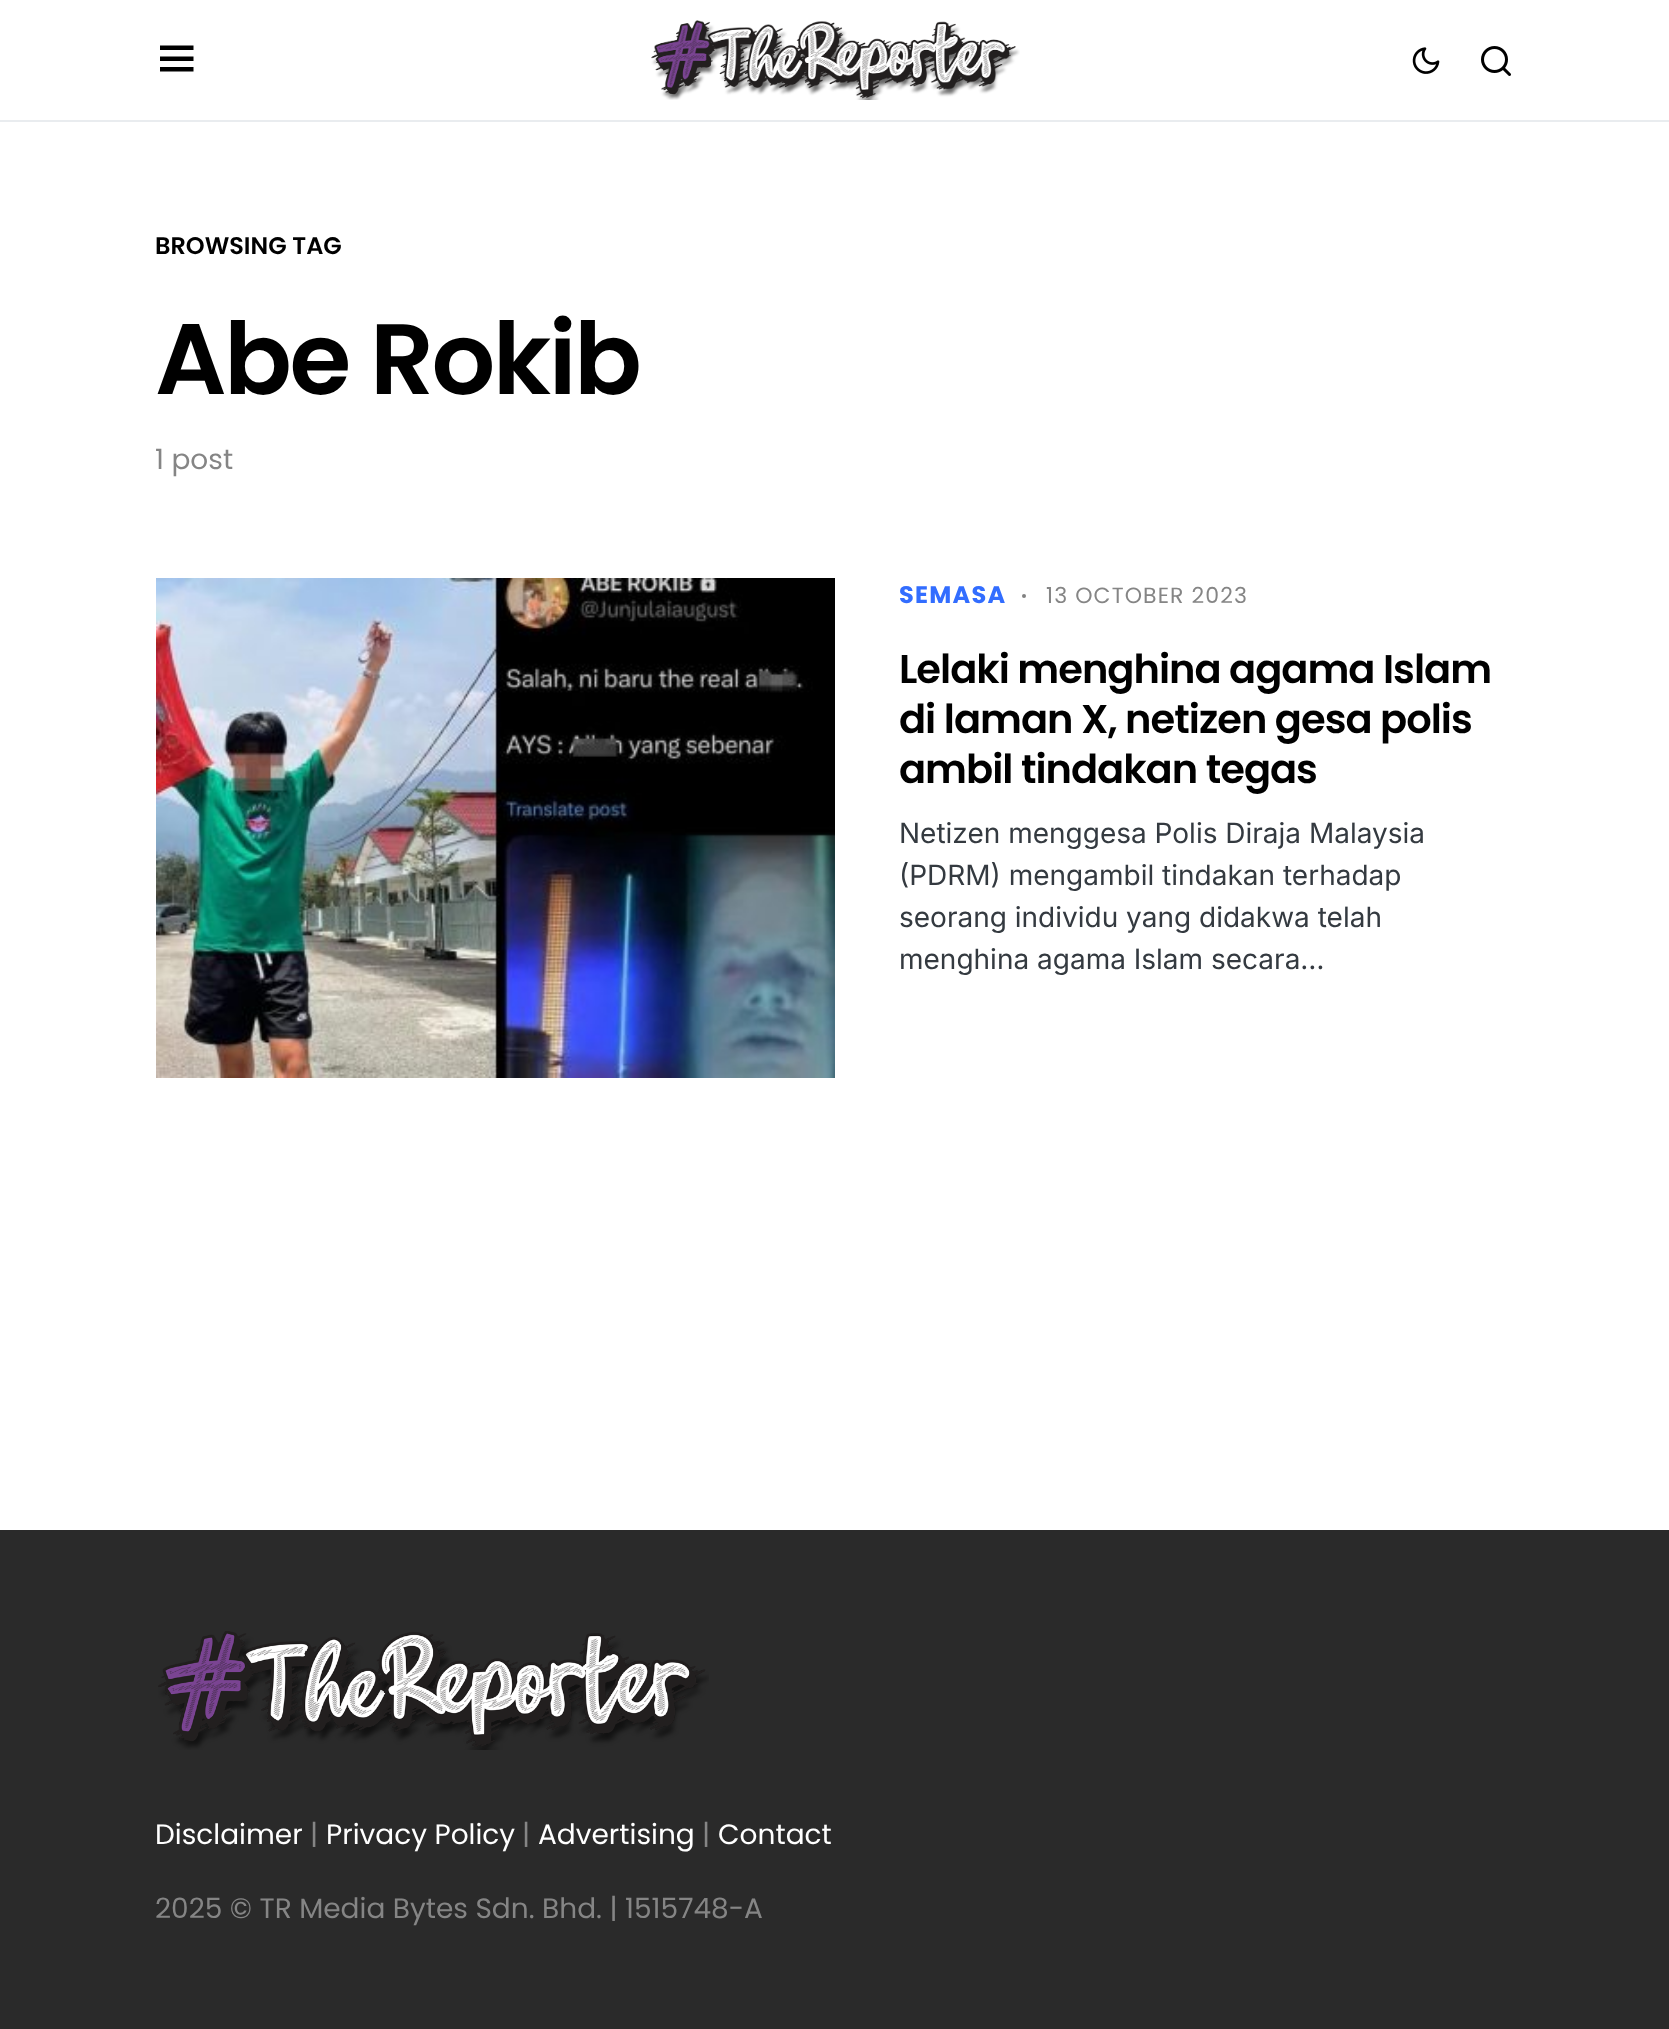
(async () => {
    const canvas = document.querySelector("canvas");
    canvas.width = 1669;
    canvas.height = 2029;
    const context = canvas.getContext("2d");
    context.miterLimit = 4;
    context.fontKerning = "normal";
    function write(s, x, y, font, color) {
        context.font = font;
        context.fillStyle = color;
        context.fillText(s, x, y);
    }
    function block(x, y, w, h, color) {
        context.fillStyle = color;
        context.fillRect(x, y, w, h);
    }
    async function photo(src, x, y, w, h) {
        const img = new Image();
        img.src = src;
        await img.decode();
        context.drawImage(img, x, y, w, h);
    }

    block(0, 0, 1669, 2029, "rgb(255, 255, 255)");
    block(0, 120, 1669, 2, "rgb(233, 236, 239)");
    context.fillStyle = "rgb(0, 0, 0)";
    context.beginPath();
    context.moveTo(160, 45.5);
    context.lineTo(193.5, 45.5);
    context.lineTo(193.5, 50);
    context.lineTo(160, 50);
    context.closePath();
    context.moveTo(160, 56.5);
    context.lineTo(193.5, 56.5);
    context.lineTo(193.5, 61);
    context.lineTo(160, 61);
    context.closePath();
    context.moveTo(160, 67);
    context.lineTo(193.5, 67);
    context.lineTo(193.5, 71.5);
    context.lineTo(160, 71.5);
    context.closePath();
    context.fill();
    await photo("media/1.png", 651, 20, 369, 80);
    await photo("media/2.png", 1412, 47, 28, 27);
    await photo("media/3.png", 1481, 46, 30, 30);
    write("BROWSING TAG", 155, 254, "600 24px Poppins", "rgb(0, 0, 0)");
    context.letterSpacing = "-2.5px";
    write("Abe Rokib", 155, 394, "600 100px Poppins", "rgb(0, 0, 0)");
    context.letterSpacing = "0px";
    write("1 post", 155, 469, "28px Poppins", "rgb(133, 133, 133)");
    await photo("media/4.png", 156, 578, 679, 500);
    context.letterSpacing = "1.25px";
    write("SEMASA", 899, 603, "bold 24px Poppins", "rgb(50, 109, 255)");
    context.fillStyle = "rgb(129, 129, 129)";
    context.beginPath();
    context.arc(1024, 596, 2, 0, Math.PI * 2);
    context.fill();
    context.letterSpacing = "1.1px";
    write("13 OCTOBER 2023", 1046, 603, "22px Poppins", "rgb(133, 133, 133)");
    context.letterSpacing = "-1px";
    write("Lelaki menghina agama Islam", 899, 683, "600 40px Poppins", "rgb(0, 0, 0)");
    write("di laman X, netizen gesa polis", 899, 733, "600 40px Poppins", "rgb(0, 0, 0)");
    write("ambil tindakan tegas", 899, 783, "600 40px Poppins", "rgb(0, 0, 0)");
    context.letterSpacing = "0px";
    write("Netizen menggesa Polis Diraja Malaysia", 899, 843, "28px Inter", "rgb(52, 58, 64)");
    write("(PDRM) mengambil tindakan terhadap", 899, 885, "28px Inter", "rgb(52, 58, 64)");
    write("seorang individu yang didakwa telah", 899, 927, "28px Inter", "rgb(52, 58, 64)");
    write("menghina agama Islam secara…", 899, 969, "28px Inter", "rgb(52, 58, 64)");
    block(0, 1530, 1669, 499, "rgb(42, 42, 42)");
    await photo("media/5.png", 158, 1631, 551, 119);
    write("Disclaimer", 155, 1844, "28px Poppins", "rgb(255, 255, 255)");
    write("|", 310, 1844, "28px Poppins", "rgb(133, 133, 133)");
    write("Privacy Policy", 326, 1844, "28px Poppins", "rgb(255, 255, 255)");
    write("|", 522, 1844, "28px Poppins", "rgb(133, 133, 133)");
    write("Advertising", 538, 1844, "28px Poppins", "rgb(255, 255, 255)");
    write("|", 702, 1844, "28px Poppins", "rgb(133, 133, 133)");
    write("Contact", 718, 1844, "28px Poppins", "rgb(255, 255, 255)");
    write("2025 © TR Media Bytes Sdn. Bhd. | 1515748-A", 155, 1918, "28px Poppins", "rgb(133, 133, 133)");
})();
